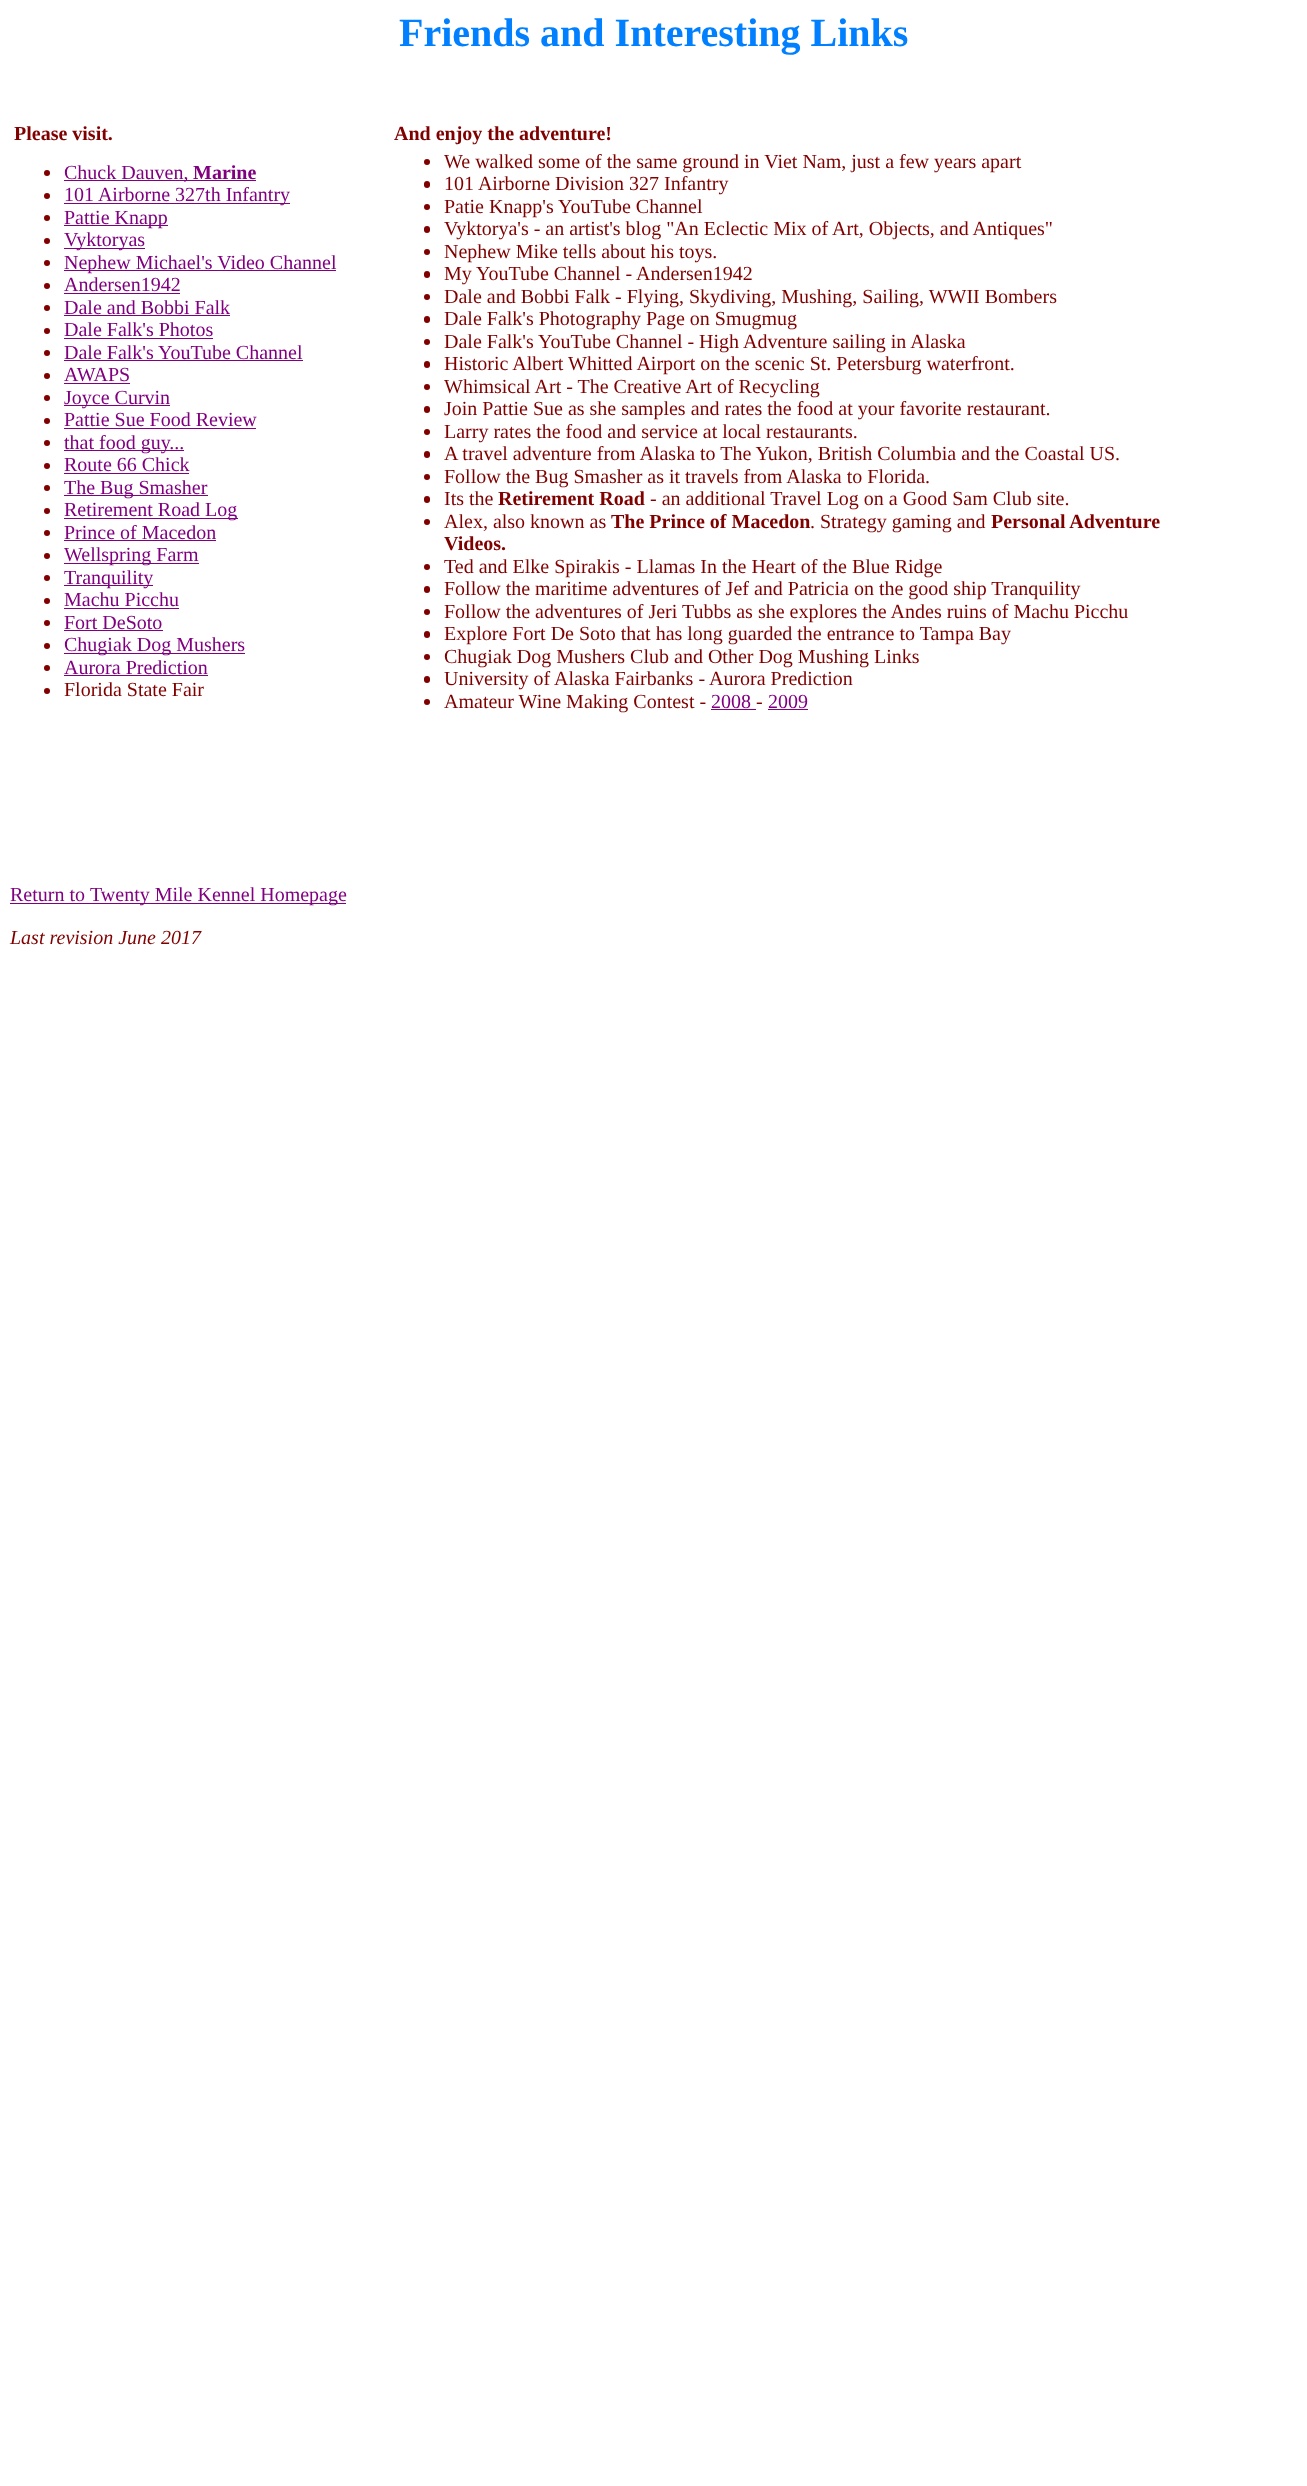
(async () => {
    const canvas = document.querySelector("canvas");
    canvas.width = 1307;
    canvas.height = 2486;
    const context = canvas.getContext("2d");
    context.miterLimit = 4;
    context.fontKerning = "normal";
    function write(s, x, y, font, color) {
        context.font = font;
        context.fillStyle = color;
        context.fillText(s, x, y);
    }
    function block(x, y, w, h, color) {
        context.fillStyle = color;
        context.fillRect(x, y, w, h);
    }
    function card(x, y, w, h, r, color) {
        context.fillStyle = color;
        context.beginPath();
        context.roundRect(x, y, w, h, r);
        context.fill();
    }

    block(0, 0, 1307, 2486, "rgb(255, 255, 255)");
    write("Friends and Interesting Links", 399, 46, "bold 40px Liberation Serif", "rgb(0, 128, 255)");
    write("Please visit.", 14, 140, "bold 20px Liberation Serif", "rgb(128, 0, 0)");
    write("And enjoy the adventure!", 394, 140, "bold 20px Liberation Serif", "rgb(128, 0, 0)");
    context.beginPath();
    context.arc(47, 173, 3, 0, Math.PI * 2);
    context.fill();
    block(64, 180, 192, 1, "rgb(128, 0, 128)");
    write("Chuck Dauven,", 64, 179, "20px Liberation Serif", "rgb(128, 0, 128)");
    write("Marine", 193, 179, "bold 20px Liberation Serif", "rgb(128, 0, 128)");
    context.fillStyle = "rgb(128, 0, 0)";
    context.beginPath();
    context.arc(47, 196, 3, 0, Math.PI * 2);
    context.fill();
    block(64, 203, 226, 1, "rgb(128, 0, 128)");
    write("101 Airborne 327th Infantry", 64, 201, "20px Liberation Serif", "rgb(128, 0, 128)");
    context.fillStyle = "rgb(128, 0, 0)";
    context.beginPath();
    context.arc(47, 218, 3, 0, Math.PI * 2);
    context.fill();
    block(64, 225, 104, 1, "rgb(128, 0, 128)");
    write("Pattie Knapp", 64, 224, "20px Liberation Serif", "rgb(128, 0, 128)");
    context.fillStyle = "rgb(128, 0, 0)";
    context.beginPath();
    context.arc(47, 241, 3, 0, Math.PI * 2);
    context.fill();
    block(64, 248, 81, 1, "rgb(128, 0, 128)");
    write("Vyktoryas", 64, 246, "20px Liberation Serif", "rgb(128, 0, 128)");
    context.fillStyle = "rgb(128, 0, 0)";
    context.beginPath();
    context.arc(47, 263, 3, 0, Math.PI * 2);
    context.fill();
    block(64, 270, 272, 1, "rgb(128, 0, 128)");
    write("Nephew Michael's Video Channel", 64, 269, "20px Liberation Serif", "rgb(128, 0, 128)");
    context.fillStyle = "rgb(128, 0, 0)";
    context.beginPath();
    context.arc(47, 286, 3, 0, Math.PI * 2);
    context.fill();
    write("Andersen1942", 64, 291, "20px Liberation Serif", "rgb(128, 0, 128)");
    block(64, 293, 116, 1, "rgb(128, 0, 128)");
    context.fillStyle = "rgb(128, 0, 0)";
    context.beginPath();
    context.arc(47, 308, 3, 0, Math.PI * 2);
    context.fill();
    write("Dale and Bobbi Falk", 64, 314, "20px Liberation Serif", "rgb(128, 0, 128)");
    block(64, 315, 166, 1, "rgb(128, 0, 128)");
    context.fillStyle = "rgb(128, 0, 0)";
    context.beginPath();
    context.arc(47, 331, 3, 0, Math.PI * 2);
    context.fill();
    write("Dale Falk's Photos", 64, 336, "20px Liberation Serif", "rgb(128, 0, 128)");
    block(64, 338, 149, 1, "rgb(128, 0, 128)");
    context.fillStyle = "rgb(128, 0, 0)";
    context.beginPath();
    context.arc(47, 353, 3, 0, Math.PI * 2);
    context.fill();
    write("Dale Falk's YouTube Channel", 64, 359, "20px Liberation Serif", "rgb(128, 0, 128)");
    block(64, 360, 239, 1, "rgb(128, 0, 128)");
    context.fillStyle = "rgb(128, 0, 0)";
    context.beginPath();
    context.arc(47, 376, 3, 0, Math.PI * 2);
    context.fill();
    write("AWAPS", 64, 381, "20px Liberation Serif", "rgb(128, 0, 128)");
    block(64, 383, 66, 1, "rgb(128, 0, 128)");
    context.fillStyle = "rgb(128, 0, 0)";
    context.beginPath();
    context.arc(47, 398, 3, 0, Math.PI * 2);
    context.fill();
    block(64, 405, 106, 1, "rgb(128, 0, 128)");
    write("Joyce Curvin", 64, 404, "20px Liberation Serif", "rgb(128, 0, 128)");
    context.fillStyle = "rgb(128, 0, 0)";
    context.beginPath();
    context.arc(47, 421, 3, 0, Math.PI * 2);
    context.fill();
    write("Pattie Sue Food Review", 64, 426, "20px Liberation Serif", "rgb(128, 0, 128)");
    block(64, 428, 192, 1, "rgb(128, 0, 128)");
    context.fillStyle = "rgb(128, 0, 0)";
    context.beginPath();
    context.arc(47, 443, 3, 0, Math.PI * 2);
    context.fill();
    block(64, 450, 120, 1, "rgb(128, 0, 128)");
    write("that food guy...", 64, 449, "20px Liberation Serif", "rgb(128, 0, 128)");
    context.fillStyle = "rgb(128, 0, 0)";
    context.beginPath();
    context.arc(47, 466, 3, 0, Math.PI * 2);
    context.fill();
    write("Route 66 Chick", 64, 471, "20px Liberation Serif", "rgb(128, 0, 128)");
    block(64, 473, 125, 1, "rgb(128, 0, 128)");
    context.fillStyle = "rgb(128, 0, 0)";
    context.beginPath();
    context.arc(47, 488, 3, 0, Math.PI * 2);
    context.fill();
    block(64, 495, 144, 1, "rgb(128, 0, 128)");
    write("The Bug Smasher", 64, 494, "20px Liberation Serif", "rgb(128, 0, 128)");
    context.fillStyle = "rgb(128, 0, 0)";
    context.beginPath();
    context.arc(47, 511, 3, 0, Math.PI * 2);
    context.fill();
    block(64, 518, 174, 1, "rgb(128, 0, 128)");
    write("Retirement Road Log", 64, 516, "20px Liberation Serif", "rgb(128, 0, 128)");
    context.fillStyle = "rgb(128, 0, 0)";
    context.beginPath();
    context.arc(47, 533, 3, 0, Math.PI * 2);
    context.fill();
    write("Prince of Macedon", 64, 539, "20px Liberation Serif", "rgb(128, 0, 128)");
    block(64, 540, 152, 1, "rgb(128, 0, 128)");
    context.fillStyle = "rgb(128, 0, 0)";
    context.beginPath();
    context.arc(47, 556, 3, 0, Math.PI * 2);
    context.fill();
    block(64, 563, 135, 1, "rgb(128, 0, 128)");
    write("Wellspring Farm", 64, 561, "20px Liberation Serif", "rgb(128, 0, 128)");
    context.fillStyle = "rgb(128, 0, 0)";
    context.beginPath();
    context.arc(47, 578, 3, 0, Math.PI * 2);
    context.fill();
    block(64, 585, 89, 1, "rgb(128, 0, 128)");
    write("Tranquility", 64, 584, "20px Liberation Serif", "rgb(128, 0, 128)");
    context.fillStyle = "rgb(128, 0, 0)";
    context.beginPath();
    context.arc(47, 601, 3, 0, Math.PI * 2);
    context.fill();
    write("Machu Picchu", 64, 606, "20px Liberation Serif", "rgb(128, 0, 128)");
    block(64, 608, 115, 1, "rgb(128, 0, 128)");
    context.fillStyle = "rgb(128, 0, 0)";
    context.beginPath();
    context.arc(47, 623, 3, 0, Math.PI * 2);
    context.fill();
    write("Fort DeSoto", 64, 629, "20px Liberation Serif", "rgb(128, 0, 128)");
    block(64, 630, 99, 1, "rgb(128, 0, 128)");
    context.fillStyle = "rgb(128, 0, 0)";
    context.beginPath();
    context.arc(47, 646, 3, 0, Math.PI * 2);
    context.fill();
    block(64, 653, 181, 1, "rgb(128, 0, 128)");
    write("Chugiak Dog Mushers", 64, 651, "20px Liberation Serif", "rgb(128, 0, 128)");
    context.fillStyle = "rgb(128, 0, 0)";
    context.beginPath();
    context.arc(47, 668, 3, 0, Math.PI * 2);
    context.fill();
    write("Aurora Prediction", 64, 674, "20px Liberation Serif", "rgb(128, 0, 128)");
    block(64, 675, 144, 1, "rgb(128, 0, 128)");
    context.fillStyle = "rgb(128, 0, 0)";
    context.beginPath();
    context.arc(47, 691, 3, 0, Math.PI * 2);
    context.fill();
    write("Florida State Fair", 64, 696, "20px Liberation Serif", "rgb(128, 0, 0)");
    context.beginPath();
    context.arc(427, 162, 3, 0, Math.PI * 2);
    context.fill();
    write("We walked some of the same ground in Viet Nam, just a few years apart", 444, 168, "20px Liberation Serif", "rgb(128, 0, 0)");
    card(424, 181, 6, 7, 3, "rgb(128, 0, 0)");
    write("101 Airborne Division 327 Infantry", 444, 190, "20px Liberation Serif", "rgb(128, 0, 0)");
    context.beginPath();
    context.arc(427, 207, 3, 0, Math.PI * 2);
    context.fill();
    write("Patie Knapp's YouTube Channel", 444, 213, "20px Liberation Serif", "rgb(128, 0, 0)");
    card(424, 226, 6, 7, 3, "rgb(128, 0, 0)");
    write("Vyktorya's - an artist's blog \"An Eclectic Mix of Art, Objects, and Antiques\"", 444, 235, "20px Liberation Serif", "rgb(128, 0, 0)");
    context.beginPath();
    context.arc(427, 252, 3, 0, Math.PI * 2);
    context.fill();
    write("Nephew Mike tells about his toys.", 444, 258, "20px Liberation Serif", "rgb(128, 0, 0)");
    card(424, 271, 6, 7, 3, "rgb(128, 0, 0)");
    write("My YouTube Channel - Andersen1942", 444, 280, "20px Liberation Serif", "rgb(128, 0, 0)");
    context.beginPath();
    context.arc(427, 297, 3, 0, Math.PI * 2);
    context.fill();
    write("Dale and Bobbi Falk - Flying, Skydiving, Mushing, Sailing, WWII Bombers", 444, 303, "20px Liberation Serif", "rgb(128, 0, 0)");
    card(424, 316, 6, 7, 3, "rgb(128, 0, 0)");
    write("Dale Falk's Photography Page on Smugmug", 444, 325, "20px Liberation Serif", "rgb(128, 0, 0)");
    context.beginPath();
    context.arc(427, 342, 3, 0, Math.PI * 2);
    context.fill();
    write("Dale Falk's YouTube Channel - High Adventure sailing in Alaska", 444, 348, "20px Liberation Serif", "rgb(128, 0, 0)");
    card(424, 361, 6, 7, 3, "rgb(128, 0, 0)");
    write("Historic Albert Whitted Airport on the scenic St. Petersburg waterfront.", 444, 370, "20px Liberation Serif", "rgb(128, 0, 0)");
    context.beginPath();
    context.arc(427, 387, 3, 0, Math.PI * 2);
    context.fill();
    write("Whimsical Art - The Creative Art of Recycling", 444, 393, "20px Liberation Serif", "rgb(128, 0, 0)");
    card(424, 406, 6, 7, 3, "rgb(128, 0, 0)");
    write("Join Pattie Sue as she samples and rates the food at your favorite restaurant.", 444, 415, "20px Liberation Serif", "rgb(128, 0, 0)");
    context.beginPath();
    context.arc(427, 432, 3, 0, Math.PI * 2);
    context.fill();
    write("Larry rates the food and service at local restaurants.", 444, 438, "20px Liberation Serif", "rgb(128, 0, 0)");
    card(424, 451, 6, 7, 3, "rgb(128, 0, 0)");
    write("A travel adventure from Alaska to The Yukon, British Columbia and the Coastal US.", 444, 460, "20px Liberation Serif", "rgb(128, 0, 0)");
    context.beginPath();
    context.arc(427, 477, 3, 0, Math.PI * 2);
    context.fill();
    write("Follow the Bug Smasher as it travels from Alaska to Florida.", 444, 483, "20px Liberation Serif", "rgb(128, 0, 0)");
    card(424, 496, 6, 7, 3, "rgb(128, 0, 0)");
    write("Its the", 444, 505, "20px Liberation Serif", "rgb(128, 0, 0)");
    write("Retirement Road", 498, 505, "bold 20px Liberation Serif", "rgb(128, 0, 0)");
    write("- an additional Travel Log on a Good Sam Club site.", 650, 505, "20px Liberation Serif", "rgb(128, 0, 0)");
    context.beginPath();
    context.arc(427, 522, 3, 0, Math.PI * 2);
    context.fill();
    write("Alex, also known as", 444, 528, "20px Liberation Serif", "rgb(128, 0, 0)");
    write("The Prince of Macedon", 611, 528, "bold 20px Liberation Serif", "rgb(128, 0, 0)");
    write(". Strategy gaming and", 810, 528, "20px Liberation Serif", "rgb(128, 0, 0)");
    write("Personal Adventure", 991, 528, "bold 20px Liberation Serif", "rgb(128, 0, 0)");
    write("Videos.", 444, 550, "bold 20px Liberation Serif", "rgb(128, 0, 0)");
    context.beginPath();
    context.arc(427, 567, 3, 0, Math.PI * 2);
    context.fill();
    write("Ted and Elke Spirakis - Llamas In the Heart of the Blue Ridge", 444, 573, "20px Liberation Serif", "rgb(128, 0, 0)");
    card(424, 586, 6, 7, 3, "rgb(128, 0, 0)");
    write("Follow the maritime adventures of Jef and Patricia on the good ship Tranquility", 444, 595, "20px Liberation Serif", "rgb(128, 0, 0)");
    context.beginPath();
    context.arc(427, 612, 3, 0, Math.PI * 2);
    context.fill();
    write("Follow the adventures of Jeri Tubbs as she explores the Andes ruins of Machu Picchu", 444, 618, "20px Liberation Serif", "rgb(128, 0, 0)");
    card(424, 631, 6, 7, 3, "rgb(128, 0, 0)");
    write("Explore Fort De Soto that has long guarded the entrance to Tampa Bay", 444, 640, "20px Liberation Serif", "rgb(128, 0, 0)");
    context.beginPath();
    context.arc(427, 657, 3, 0, Math.PI * 2);
    context.fill();
    write("Chugiak Dog Mushers Club and Other Dog Mushing Links", 444, 663, "20px Liberation Serif", "rgb(128, 0, 0)");
    card(424, 676, 6, 7, 3, "rgb(128, 0, 0)");
    write("University of Alaska Fairbanks - Aurora Prediction", 444, 685, "20px Liberation Serif", "rgb(128, 0, 0)");
    context.beginPath();
    context.arc(427, 702, 3, 0, Math.PI * 2);
    context.fill();
    write("Amateur Wine Making Contest -", 444, 708, "20px Liberation Serif", "rgb(128, 0, 0)");
    write("2008", 711, 708, "20px Liberation Serif", "rgb(128, 0, 128)");
    block(711, 709, 45, 1, "rgb(128, 0, 128)");
    write("-", 756, 708, "20px Liberation Serif", "rgb(128, 0, 0)");
    write("2009", 768, 708, "20px Liberation Serif", "rgb(128, 0, 128)");
    block(768, 709, 40, 1, "rgb(128, 0, 128)");
    write("Return to", 10, 901, "20px Liberation Serif", "rgb(128, 0, 128)");
    block(10, 903, 336, 1, "rgb(128, 0, 128)");
    write("Twenty Mile Kennel Homepage", 90, 901, "20px Liberation Serif", "rgb(128, 0, 128)");
    write("Last revision June 2017", 10, 944, "italic 20px Liberation Serif", "rgb(128, 0, 0)");
})();
